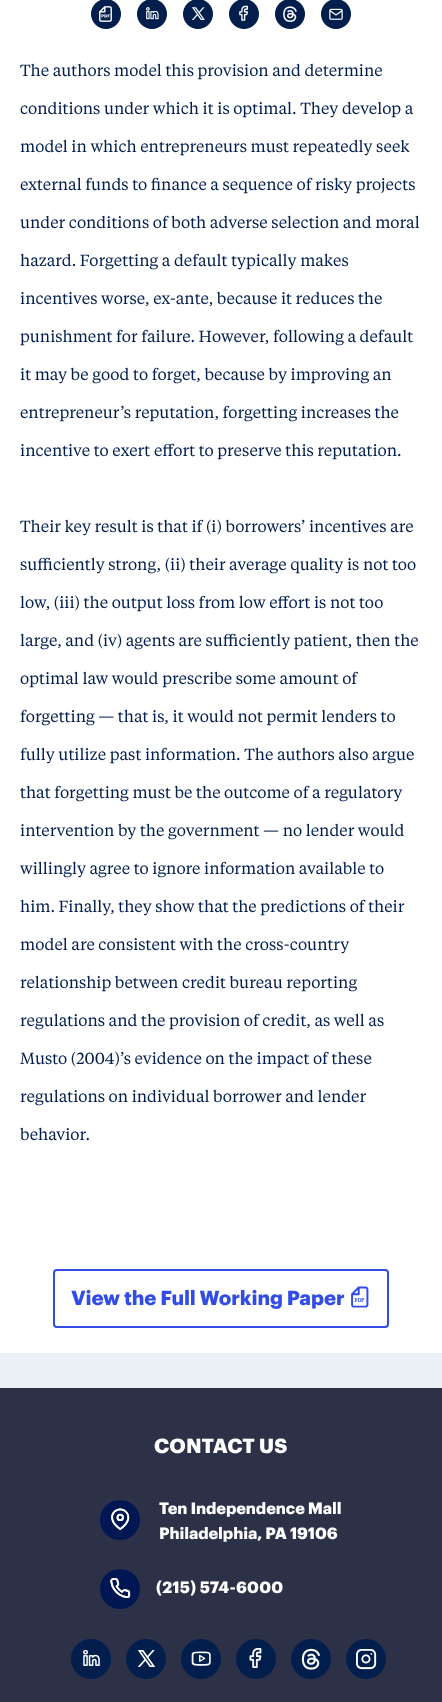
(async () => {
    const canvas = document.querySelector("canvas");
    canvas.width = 442;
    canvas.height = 1702;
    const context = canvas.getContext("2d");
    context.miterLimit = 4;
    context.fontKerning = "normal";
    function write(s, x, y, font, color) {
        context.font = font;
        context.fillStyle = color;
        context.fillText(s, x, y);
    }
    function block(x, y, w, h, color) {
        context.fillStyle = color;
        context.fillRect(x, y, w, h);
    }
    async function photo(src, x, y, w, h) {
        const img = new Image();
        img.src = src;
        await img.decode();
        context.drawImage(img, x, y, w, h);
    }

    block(0, 0, 442, 1702, "rgb(255, 255, 255)");
    await photo("media/1.png", 91, 0, 30, 29);
    await photo("media/2.png", 137, 0, 30, 29);
    await photo("media/3.png", 183, 0, 30, 29);
    await photo("media/4.png", 229, 0, 30, 29);
    await photo("media/5.png", 275, 0, 30, 29);
    await photo("media/6.png", 321, 0, 30, 29);
    write("The authors model this provision and determine", 20, 76, "16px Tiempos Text", "rgb(1, 30, 77)");
    write("conditions under which it is optimal. They develop a", 20, 114, "16px Tiempos Text", "rgb(1, 30, 77)");
    write("model in which entrepreneurs must repeatedly seek", 20, 152, "16px Tiempos Text", "rgb(1, 30, 77)");
    write("external funds to finance a sequence of risky projects", 20, 190, "16px Tiempos Text", "rgb(1, 30, 77)");
    write("under conditions of both adverse selection and moral", 20, 228, "16px Tiempos Text", "rgb(1, 30, 77)");
    write("hazard. Forgetting a default typically makes", 20, 266, "16px Tiempos Text", "rgb(1, 30, 77)");
    write("incentives worse, ex-ante, because it reduces the", 20, 304, "16px Tiempos Text", "rgb(1, 30, 77)");
    write("punishment for failure. However, following a default", 20, 342, "16px Tiempos Text", "rgb(1, 30, 77)");
    write("it may be good to forget, because by improving an", 20, 380, "16px Tiempos Text", "rgb(1, 30, 77)");
    write("entrepreneur’s reputation, forgetting increases the", 20, 418, "16px Tiempos Text", "rgb(1, 30, 77)");
    write("incentive to exert effort to preserve this reputation.", 20, 456, "16px Tiempos Text", "rgb(1, 30, 77)");
    write("Their key result is that if (i) borrowers’ incentives are", 20, 532, "16px Tiempos Text", "rgb(1, 30, 77)");
    write("sufficiently strong, (ii) their average quality is not too", 20, 570, "16px Tiempos Text", "rgb(1, 30, 77)");
    write("low, (iii) the output loss from low effort is not too", 20, 608, "16px Tiempos Text", "rgb(1, 30, 77)");
    write("large, and (iv) agents are sufficiently patient, then the", 20, 646, "16px Tiempos Text", "rgb(1, 30, 77)");
    write("optimal law would prescribe some amount of", 20, 684, "16px Tiempos Text", "rgb(1, 30, 77)");
    write("forgetting — that is, it would not permit lenders to", 20, 722, "16px Tiempos Text", "rgb(1, 30, 77)");
    write("fully utilize past information. The authors also argue", 20, 760, "16px Tiempos Text", "rgb(1, 30, 77)");
    write("that forgetting must be the outcome of a regulatory", 20, 798, "16px Tiempos Text", "rgb(1, 30, 77)");
    write("intervention by the government — no lender would", 20, 836, "16px Tiempos Text", "rgb(1, 30, 77)");
    write("willingly agree to ignore information available to", 20, 874, "16px Tiempos Text", "rgb(1, 30, 77)");
    write("him. Finally, they show that the predictions of their", 20, 912, "16px Tiempos Text", "rgb(1, 30, 77)");
    write("model are consistent with the cross-country", 20, 950, "16px Tiempos Text", "rgb(1, 30, 77)");
    write("relationship between credit bureau reporting", 20, 988, "16px Tiempos Text", "rgb(1, 30, 77)");
    write("regulations and the provision of credit, as well as", 20, 1026, "16px Tiempos Text", "rgb(1, 30, 77)");
    write("Musto (2004)’s evidence on the impact of these", 20, 1064, "16px Tiempos Text", "rgb(1, 30, 77)");
    write("regulations on individual borrower and lender", 20, 1102, "16px Tiempos Text", "rgb(1, 30, 77)");
    write("behavior.", 20, 1140, "16px Tiempos Text", "rgb(1, 30, 77)");
    context.beginPath();
    context.roundRect(54, 1270, 334, 57, 3);
    context.strokeStyle = "rgb(50, 77, 230)";
    context.lineWidth = 2;
    context.stroke();
    context.letterSpacing = "-0.1px";
    write("View the Full Working Paper", 71, 1305, "bold 20px Graphik", "rgb(50, 77, 230)");
    await photo("media/7.png", 351, 1286, 18, 22);
    block(0, 1353, 442, 35, "rgb(235, 240, 244)");
    block(0, 1388, 442, 314, "rgb(45, 49, 72)");
    context.letterSpacing = "0px";
    write("CONTACT US", 154, 1453, "bold 20px Graphik", "rgb(255, 255, 255)");
    context.fillStyle = "rgb(0, 23, 83)";
    context.beginPath();
    context.arc(120, 1520, 20, 0, Math.PI * 2);
    context.fill();
    context.letterSpacing = "-0.1px";
    write("Ten Independence Mall", 159, 1514, "bold 16px Graphik", "rgb(255, 255, 255)");
    await photo("media/8.png", 111, 1508, 19, 22);
    write("Philadelphia, PA 19106", 159, 1539, "bold 16px Graphik", "rgb(255, 255, 255)");
    context.fillStyle = "rgb(0, 23, 83)";
    context.beginPath();
    context.arc(120, 1589, 20, 0, Math.PI * 2);
    context.fill();
    await photo("media/9.png", 110, 1578, 21, 20);
    context.letterSpacing = "0.25px";
    write("(215) 574-6000", 156, 1593, "bold 16px Graphik", "rgb(255, 255, 255)");
    await photo("media/10.png", 71, 1639, 40, 40);
    await photo("media/11.png", 126, 1639, 40, 40);
    await photo("media/12.png", 181, 1639, 40, 40);
    await photo("media/13.png", 236, 1639, 40, 40);
    await photo("media/14.png", 291, 1639, 40, 40);
    await photo("media/15.png", 346, 1639, 40, 40);
})();
